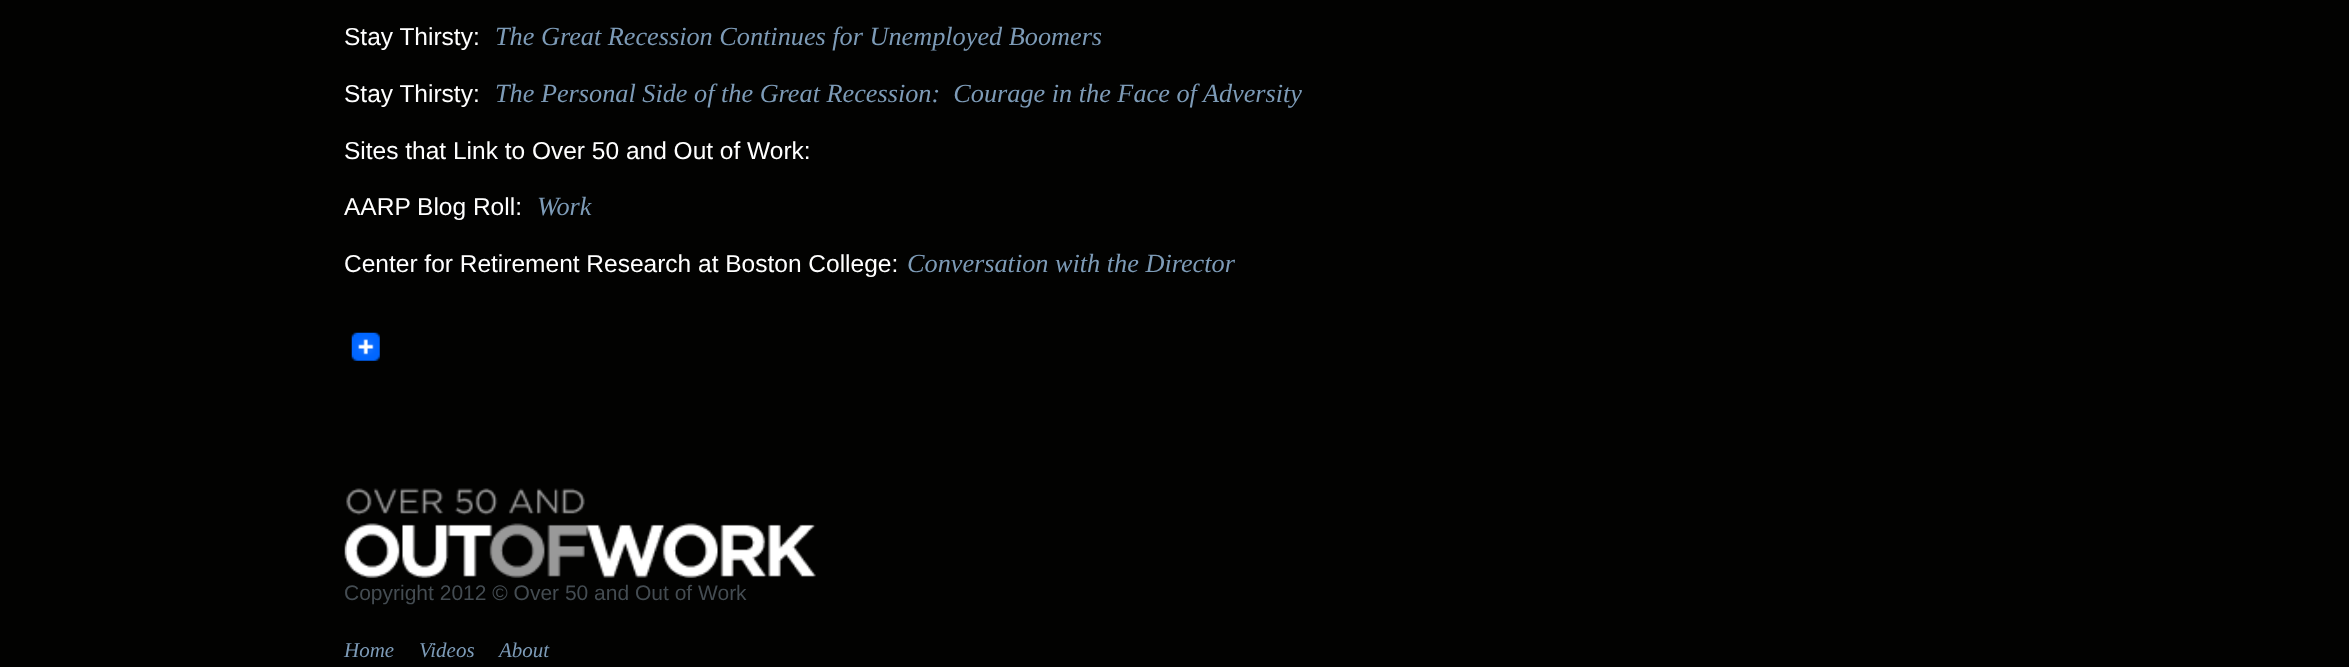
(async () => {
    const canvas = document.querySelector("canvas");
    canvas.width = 2349;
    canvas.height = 667;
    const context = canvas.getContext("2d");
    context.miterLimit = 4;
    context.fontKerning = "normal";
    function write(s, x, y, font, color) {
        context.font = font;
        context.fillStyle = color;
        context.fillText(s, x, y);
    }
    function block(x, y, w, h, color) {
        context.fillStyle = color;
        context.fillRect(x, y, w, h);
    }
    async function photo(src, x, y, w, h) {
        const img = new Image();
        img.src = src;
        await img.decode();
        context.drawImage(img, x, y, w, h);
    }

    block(0, 0, 2349, 667, "rgb(2, 2, 1)");
    write("Stay Thirsty:", 344, 45, "24.5px Liberation Sans", "rgb(255, 255, 255)");
    write("The Great Recession Continues for Unemployed Boomers", 495, 45, "italic 26.25px Liberation Serif", "rgb(125, 155, 183)");
    write("Stay Thirsty:", 344, 102, "24.5px Liberation Sans", "rgb(255, 255, 255)");
    write("The Personal Side of the Great Recession:  Courage in the Face of Adversity", 495, 102, "italic 26.25px Liberation Serif", "rgb(125, 155, 183)");
    write("Sites that Link to Over 50 and Out of Work:", 344, 159, "24.5px Liberation Sans", "rgb(255, 255, 255)");
    write("AARP Blog Roll:", 344, 215, "24.5px Liberation Sans", "rgb(255, 255, 255)");
    write("Work", 537, 215, "italic 26.25px Liberation Serif", "rgb(125, 155, 183)");
    write("Center for Retirement Research at Boston College:", 344, 272, "24.5px Liberation Sans", "rgb(255, 255, 255)");
    write("Conversation with the Director", 907, 272, "italic 26.25px Liberation Serif", "rgb(125, 155, 183)");
    await photo("media/1.png", 351, 332, 29, 29);
    await photo("media/2.png", 344, 488, 472, 90);
    write("Copyright 2012 © Over 50 and Out of Work", 344, 600, "21px Liberation Sans", "rgb(68, 76, 82)");
    write("Home", 344, 657, "italic 21px Liberation Serif", "rgb(125, 155, 183)");
    write("Videos", 419, 657, "italic 21px Liberation Serif", "rgb(125, 155, 183)");
    write("About", 499, 657, "italic 21px Liberation Serif", "rgb(125, 155, 183)");
})();
